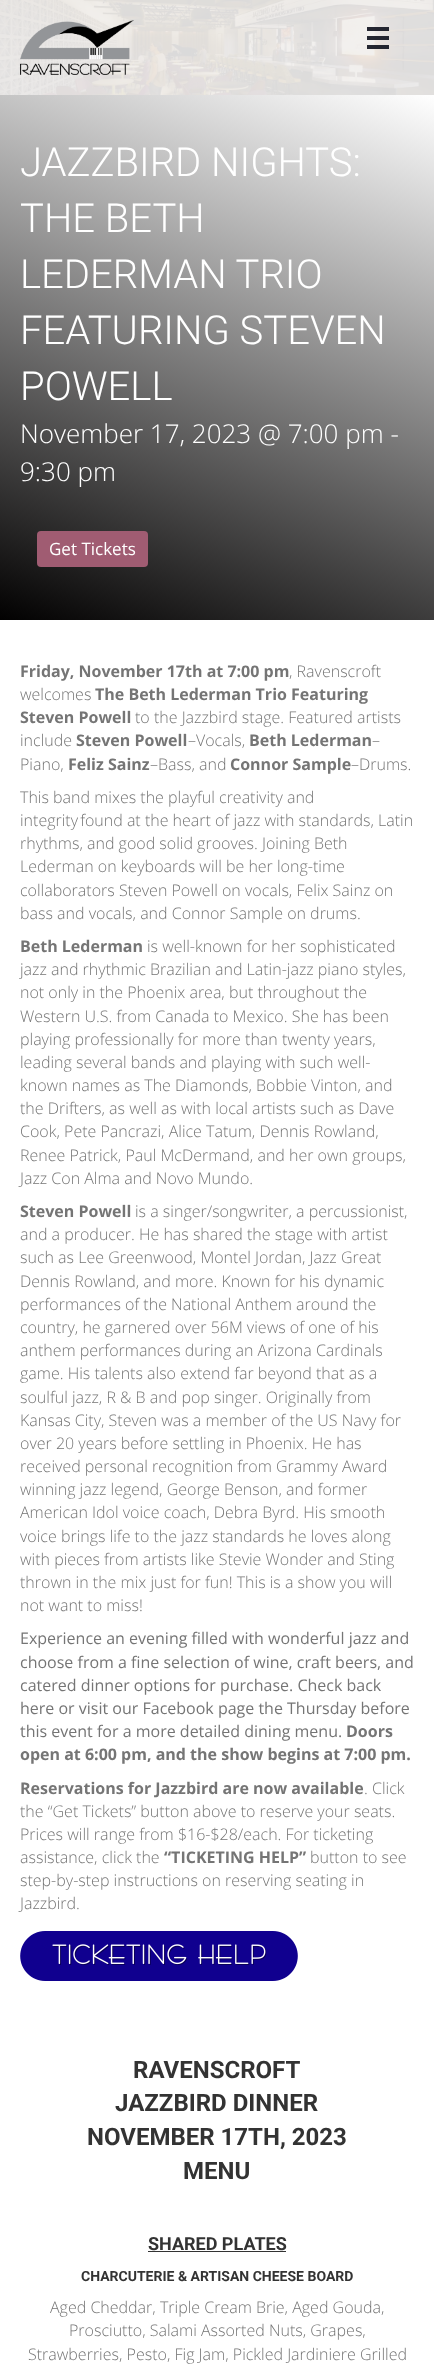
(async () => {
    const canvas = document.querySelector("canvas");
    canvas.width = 434;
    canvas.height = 2364;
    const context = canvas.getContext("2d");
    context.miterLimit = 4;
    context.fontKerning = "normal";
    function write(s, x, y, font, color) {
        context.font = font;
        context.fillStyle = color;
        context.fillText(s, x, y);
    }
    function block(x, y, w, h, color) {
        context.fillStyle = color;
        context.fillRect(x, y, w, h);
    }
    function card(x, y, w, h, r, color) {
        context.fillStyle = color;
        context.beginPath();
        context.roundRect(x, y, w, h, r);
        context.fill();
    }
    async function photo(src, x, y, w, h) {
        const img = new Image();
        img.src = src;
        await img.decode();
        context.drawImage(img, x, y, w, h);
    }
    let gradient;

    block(0, 0, 434, 2364, "rgb(255, 255, 255)");
    await photo("media/1.png", 0, 0, 434, 95);
    await photo("media/2.png", 20, 20, 114, 55);
    block(367, 27, 22, 4, "rgba(24, 26, 38, 0.95)");
    block(367, 36, 22, 4, "rgba(24, 26, 38, 0.95)");
    block(367, 45, 22, 4, "rgba(24, 26, 38, 0.95)");
    gradient = context.createLinearGradient(107, 659, 327, 56);
    gradient.addColorStop(0, "rgb(2, 1, 1)");
    gradient.addColorStop(1, "rgb(255, 255, 255)");
    context.fillStyle = gradient;
    context.fillRect(0, 95, 434, 525);
    write("JAZZBIRD NIGHTS:", 20, 176, "300 40px Roboto", "rgb(255, 255, 255)");
    write("THE BETH", 20, 232, "300 40px Roboto", "rgb(255, 255, 255)");
    write("LEDERMAN TRIO", 20, 288, "300 40px Roboto", "rgb(255, 255, 255)");
    write("FEATURING STEVEN", 20, 344, "300 40px Roboto", "rgb(255, 255, 255)");
    write("POWELL", 20, 400, "300 40px Roboto", "rgb(255, 255, 255)");
    write("November 17, 2023 @ 7:00 pm -", 20, 443, "300 26px Open Sans", "rgb(255, 255, 255)");
    write("9:30 pm", 20, 481, "300 26px Open Sans", "rgb(255, 255, 255)");
    card(37, 531, 111, 36, 4, "rgb(160, 92, 114)");
    write("Get Tickets", 49, 555, "17px Open Sans", "rgb(255, 255, 255)");
    write("Friday, November 17th at 7:00 pm", 20, 677, "bold 16px Open Sans", "rgb(117, 117, 117)");
    write(", Ravenscroft", 289, 677, "300 16px Open Sans", "rgb(117, 117, 117)");
    write("welcomes", 20, 700, "300 16px Open Sans", "rgb(117, 117, 117)");
    write("The Beth Lederman Trio Featuring", 95, 700, "bold 16px Open Sans", "rgb(117, 117, 117)");
    write("Steven Powell", 20, 723, "bold 16px Open Sans", "rgb(117, 117, 117)");
    write("to the Jazzbird stage. Featured artists", 135, 723, "300 16px Open Sans", "rgb(117, 117, 117)");
    write("include", 20, 746, "300 16px Open Sans", "rgb(117, 117, 117)");
    write("Steven Powell", 76, 746, "bold 16px Open Sans", "rgb(117, 117, 117)");
    write("–Vocals,", 188, 746, "300 16px Open Sans", "rgb(117, 117, 117)");
    write("Beth Lederman", 249, 746, "bold 16px Open Sans", "rgb(117, 117, 117)");
    write("–", 372, 746, "300 16px Open Sans", "rgb(117, 117, 117)");
    write("Piano,", 20, 770, "300 16px Open Sans", "rgb(117, 117, 117)");
    write("Feliz Sainz", 68, 770, "bold 16px Open Sans", "rgb(117, 117, 117)");
    write("–Bass, and", 150, 770, "300 16px Open Sans", "rgb(117, 117, 117)");
    write("Connor Sample", 230, 770, "bold 16px Open Sans", "rgb(117, 117, 117)");
    write("–Drums.", 351, 770, "300 16px Open Sans", "rgb(117, 117, 117)");
    write("This band mixes the playful creativity and", 20, 803, "300 16px Open Sans", "rgb(117, 117, 117)");
    write("integrity found at the heart of jazz with standards, Latin", 20, 826, "300 16px Open Sans", "rgb(117, 117, 117)");
    write("rhythms, and good solid grooves. Joining Beth", 20, 849, "300 16px Open Sans", "rgb(117, 117, 117)");
    write("Lederman on keyboards will be her long-time", 20, 872, "300 16px Open Sans", "rgb(117, 117, 117)");
    write("collaborators Steven Powell on vocals, Felix Sainz on", 20, 896, "300 16px Open Sans", "rgb(117, 117, 117)");
    write("bass and vocals, and Connor Sample on drums.", 20, 919, "300 16px Open Sans", "rgb(117, 117, 117)");
    write("Beth Lederman", 20, 952, "bold 16px Open Sans", "rgb(117, 117, 117)");
    write("is well-known for her sophisticated", 147, 952, "300 16px Open Sans", "rgb(117, 117, 117)");
    write("jazz and rhythmic Brazilian and Latin-jazz piano styles,", 20, 975, "300 16px Open Sans", "rgb(117, 117, 117)");
    write("not only in the Phoenix area, but throughout the", 20, 998, "300 16px Open Sans", "rgb(117, 117, 117)");
    write("Western U.S. from Canada to Mexico. She has been", 20, 1022, "300 16px Open Sans", "rgb(117, 117, 117)");
    write("playing professionally for more than twenty years,", 20, 1045, "300 16px Open Sans", "rgb(117, 117, 117)");
    write("leading several bands and playing with such well-", 20, 1068, "300 16px Open Sans", "rgb(117, 117, 117)");
    write("known names as The Diamonds, Bobbie Vinton, and", 20, 1091, "300 16px Open Sans", "rgb(117, 117, 117)");
    write("the Drifters, as well as with local artists such as Dave", 20, 1114, "300 16px Open Sans", "rgb(117, 117, 117)");
    write("Cook, Pete Pancrazi, Alice Tatum, Dennis Rowland,", 20, 1137, "300 16px Open Sans", "rgb(117, 117, 117)");
    write("Renee Patrick, Paul McDermand, and her own groups,", 20, 1161, "300 16px Open Sans", "rgb(117, 117, 117)");
    write("Jazz Con Alma and Novo Mundo.", 20, 1184, "300 16px Open Sans", "rgb(117, 117, 117)");
    write("Steven Powell", 20, 1217, "bold 16px Open Sans", "rgb(117, 117, 117)");
    write("is a singer/songwriter, a percussionist,", 135, 1217, "300 16px Open Sans", "rgb(117, 117, 117)");
    write("and a producer. He has shared the stage with artist", 20, 1240, "300 16px Open Sans", "rgb(117, 117, 117)");
    write("such as Lee Greenwood, Montel Jordan, Jazz Great", 20, 1263, "300 16px Open Sans", "rgb(117, 117, 117)");
    write("Dennis Rowland, and more. Known for his dynamic", 20, 1287, "300 16px Open Sans", "rgb(117, 117, 117)");
    write("performances of the National Anthem around the", 20, 1310, "300 16px Open Sans", "rgb(117, 117, 117)");
    write("country, he garnered over 56M views of one of his", 20, 1333, "300 16px Open Sans", "rgb(117, 117, 117)");
    write("anthem performances during an Arizona Cardinals", 20, 1356, "300 16px Open Sans", "rgb(117, 117, 117)");
    write("game. His talents also extend far beyond that as a", 20, 1379, "300 16px Open Sans", "rgb(117, 117, 117)");
    write("soulful jazz, R & B and pop singer. Originally from", 20, 1403, "300 16px Open Sans", "rgb(117, 117, 117)");
    write("Kansas City, Steven was a member of the US Navy for", 20, 1426, "300 16px Open Sans", "rgb(117, 117, 117)");
    write("over 20 years before settling in Phoenix. He has", 20, 1449, "300 16px Open Sans", "rgb(117, 117, 117)");
    write("received personal recognition from Grammy Award", 20, 1472, "300 16px Open Sans", "rgb(117, 117, 117)");
    write("winning jazz legend, George Benson, and former", 20, 1495, "300 16px Open Sans", "rgb(117, 117, 117)");
    write("American Idol voice coach, Debra Byrd. His smooth", 20, 1518, "300 16px Open Sans", "rgb(117, 117, 117)");
    write("voice brings life to the jazz standards he loves along", 20, 1542, "300 16px Open Sans", "rgb(117, 117, 117)");
    write("with pieces from artists like Stevie Wonder and Sting", 20, 1565, "300 16px Open Sans", "rgb(117, 117, 117)");
    write("thrown in the mix just for fun! This is a show you will", 20, 1588, "300 16px Open Sans", "rgb(117, 117, 117)");
    write("not want to miss!", 20, 1611, "300 16px Open Sans", "rgb(117, 117, 117)");
    write("Experience an evening filled with wonderful jazz and", 20, 1644, "16px Open Sans", "rgb(117, 117, 117)");
    write("choose from a fine selection of wine, craft beers, and", 20, 1668, "16px Open Sans", "rgb(117, 117, 117)");
    write("catered dinner options for purchase. Check back", 20, 1691, "16px Open Sans", "rgb(117, 117, 117)");
    write("here or visit our Facebook page the Thursday before", 20, 1714, "16px Open Sans", "rgb(117, 117, 117)");
    write("this event for a more detailed dining menu.", 20, 1737, "16px Open Sans", "rgb(117, 117, 117)");
    write("Doors", 346, 1737, "bold 16px Open Sans", "rgb(117, 117, 117)");
    write("open at 6:00 pm, and the show begins at 7:00 pm.", 20, 1760, "bold 16px Open Sans", "rgb(117, 117, 117)");
    write("Reservations for Jazzbird are now available", 20, 1794, "bold 16px Open Sans", "rgb(117, 117, 117)");
    write(". Click", 364, 1794, "300 16px Open Sans", "rgb(117, 117, 117)");
    write("the “Get Tickets” button above to reserve your seats.", 20, 1817, "300 16px Open Sans", "rgb(117, 117, 117)");
    write("Prices will range from $16-$28/each. For ticketing", 20, 1840, "300 16px Open Sans", "rgb(117, 117, 117)");
    write("assistance, click the", 20, 1863, "300 16px Open Sans", "rgb(117, 117, 117)");
    write("“TICKETING HELP”", 164, 1863, "bold 16px Open Sans", "rgb(117, 117, 117)");
    write("button to see", 310, 1863, "300 16px Open Sans", "rgb(117, 117, 117)");
    write("step-by-step instructions on reserving seating in", 20, 1886, "300 16px Open Sans", "rgb(117, 117, 117)");
    write("Jazzbird.", 20, 1909, "300 16px Open Sans", "rgb(117, 117, 117)");
    await photo("media/3.png", 20, 1931, 278, 50);
    write("RAVENSCROFT", 133, 2078, "bold 24px Roboto", "rgb(51, 51, 51)");
    write("JAZZBIRD DINNER", 115, 2111, "bold 24px Roboto", "rgb(51, 51, 51)");
    write("NOVEMBER 17TH, 2023", 87, 2145, "bold 24px Roboto", "rgb(51, 51, 51)");
    write("MENU", 183, 2179, "bold 24px Roboto", "rgb(51, 51, 51)");
    write("SHARED PLATES", 148, 2250, "bold 18px Roboto", "rgb(51, 51, 51)");
    block(148, 2251, 138, 1, "rgb(51, 51, 51)");
    write("CHARCUTERIE & ARTISAN CHEESE BOARD", 81, 2281, "bold 14px Roboto", "rgb(51, 51, 51)");
    write("Aged Cheddar, Triple Cream Brie, Aged Gouda,", 50, 2313, "300 16px Open Sans", "rgb(117, 117, 117)");
    write("Prosciutto, Salami Assorted Nuts, Grapes,", 69, 2336, "300 16px Open Sans", "rgb(117, 117, 117)");
    write("Strawberries, Pesto, Fig Jam, Pickled Jardiniere Grilled", 28, 2360, "300 16px Open Sans", "rgb(117, 117, 117)");
})();
